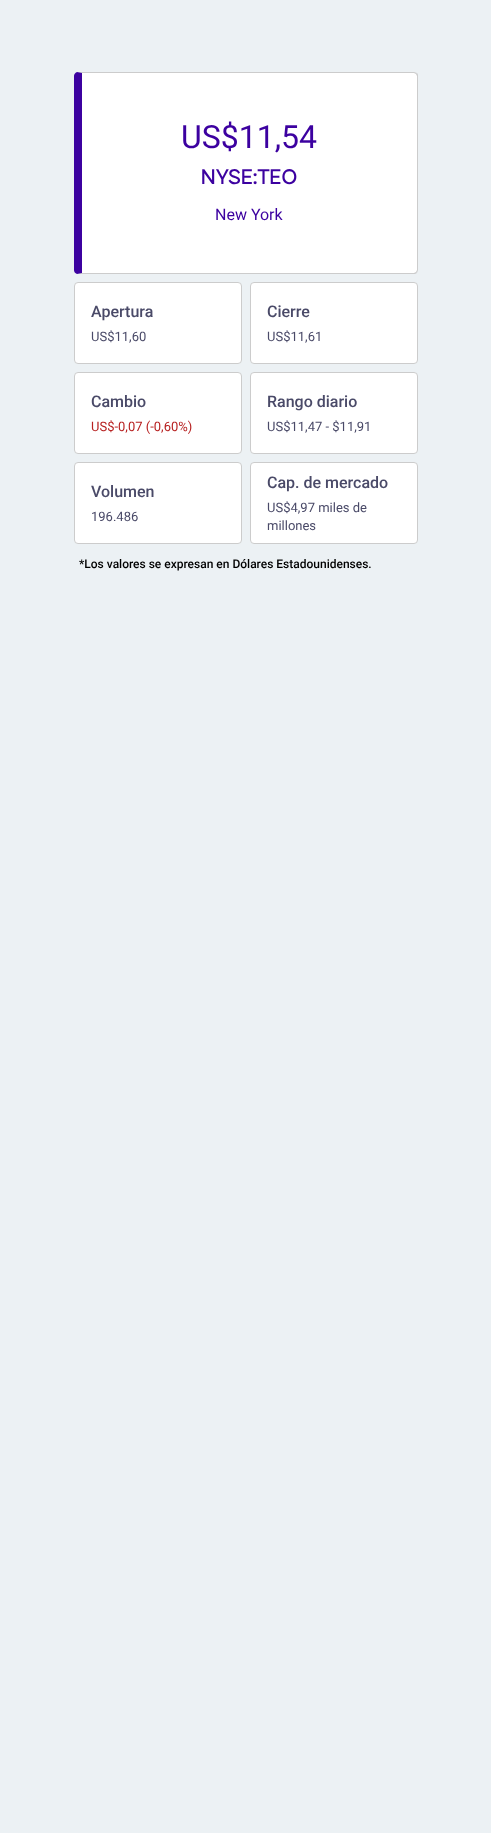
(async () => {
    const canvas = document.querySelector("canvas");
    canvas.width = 491;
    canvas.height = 1833;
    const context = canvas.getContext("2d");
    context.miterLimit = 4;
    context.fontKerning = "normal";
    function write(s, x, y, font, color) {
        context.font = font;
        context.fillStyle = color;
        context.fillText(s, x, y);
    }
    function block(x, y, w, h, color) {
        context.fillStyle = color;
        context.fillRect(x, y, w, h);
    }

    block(0, 0, 491, 1833, "rgb(236, 241, 244)");
    context.fillStyle = "rgb(255, 255, 255)";
    context.beginPath();
    context.moveTo(82, 73);
    context.lineTo(414, 73);
    context.bezierCurveTo(416, 73, 417, 74, 417, 76);
    context.lineTo(417, 270);
    context.bezierCurveTo(417, 272, 416, 273, 414, 273);
    context.lineTo(82, 273);
    context.closePath();
    context.fill();
    context.fillStyle = "rgb(204, 204, 204)";
    context.beginPath();
    context.moveTo(78, 72);
    context.lineTo(77, 72);
    context.lineTo(82, 73);
    context.lineTo(414, 73);
    context.lineTo(416, 74);
    context.lineTo(417, 73);
    context.lineTo(414, 72);
    context.closePath();
    context.fill();
    context.beginPath();
    context.moveTo(418, 270);
    context.lineTo(418, 76);
    context.bezierCurveTo(418, 75, 418, 74, 417, 73);
    context.lineTo(416, 74);
    context.lineTo(417, 76);
    context.lineTo(417, 270);
    context.lineTo(416, 272);
    context.lineTo(417, 273);
    context.closePath();
    context.fill();
    context.beginPath();
    context.moveTo(78, 274);
    context.lineTo(415, 274);
    context.lineTo(417, 273);
    context.lineTo(416, 272);
    context.lineTo(414, 273);
    context.lineTo(82, 273);
    context.lineTo(77, 274);
    context.closePath();
    context.fill();
    context.fillStyle = "rgb(60, 1, 160)";
    context.beginPath();
    context.moveTo(82, 73);
    context.lineTo(77, 72);
    context.bezierCurveTo(75, 73, 74, 74, 74, 76);
    context.lineTo(74, 270);
    context.bezierCurveTo(74, 272, 75, 273, 77, 274);
    context.lineTo(82, 273);
    context.closePath();
    context.fill();
    write("US$11,54", 181, 148, "32px Roboto", "rgb(60, 1, 160)");
    write("NYSE:TEO", 201, 184, "20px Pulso", "rgb(60, 1, 160)");
    write("New York", 215, 220, "16px Roboto", "rgb(60, 1, 160)");
    context.fillStyle = "rgb(255, 255, 255)";
    context.beginPath();
    context.roundRect(74.5, 282.5, 167, 81, 3.5);
    context.fill();
    context.strokeStyle = "rgb(204, 204, 204)";
    context.stroke();
    write("Apertura", 91, 317, "500 16px Roboto", "rgb(74, 74, 104)");
    write("US$11,60", 91, 341, "13px Roboto", "rgb(74, 74, 104)");
    context.fillStyle = "rgb(255, 255, 255)";
    context.beginPath();
    context.roundRect(250.5, 282.5, 167, 81, 3.5);
    context.fill();
    context.stroke();
    write("Cierre", 267, 317, "500 16px Roboto", "rgb(74, 74, 104)");
    write("US$11,61", 267, 341, "13px Roboto", "rgb(74, 74, 104)");
    context.fillStyle = "rgb(255, 255, 255)";
    context.beginPath();
    context.roundRect(74.5, 372.5, 167, 81, 3.5);
    context.fill();
    context.stroke();
    write("Cambio", 91, 407, "500 16px Roboto", "rgb(74, 74, 104)");
    write("US$-0,07 (-0,60%)", 91, 431, "13px Roboto", "rgb(183, 33, 33)");
    context.fillStyle = "rgb(255, 255, 255)";
    context.beginPath();
    context.roundRect(250.5, 372.5, 167, 81, 3.5);
    context.fill();
    context.stroke();
    write("Rango diario", 267, 407, "500 16px Roboto", "rgb(74, 74, 104)");
    write("US$11,47 - $11,91", 267, 431, "13px Roboto", "rgb(74, 74, 104)");
    context.fillStyle = "rgb(255, 255, 255)";
    context.beginPath();
    context.roundRect(74.5, 462.5, 167, 81, 3.5);
    context.fill();
    context.stroke();
    write("Volumen", 91, 497, "500 16px Roboto", "rgb(74, 74, 104)");
    write("196.486", 91, 521, "13px Roboto", "rgb(74, 74, 104)");
    context.fillStyle = "rgb(255, 255, 255)";
    context.beginPath();
    context.roundRect(250.5, 462.5, 167, 81, 3.5);
    context.fill();
    context.stroke();
    write("Cap. de mercado", 267, 488, "500 16px Roboto", "rgb(74, 74, 104)");
    write("US$4,97 miles de", 267, 512, "13px Roboto", "rgb(74, 74, 104)");
    write("millones", 267, 530, "13px Roboto", "rgb(74, 74, 104)");
    write("*Los valores se expresan en Dólares Estadounidenses.", 79, 568, "500 12px Roboto", "rgb(0, 0, 0)");
})();
